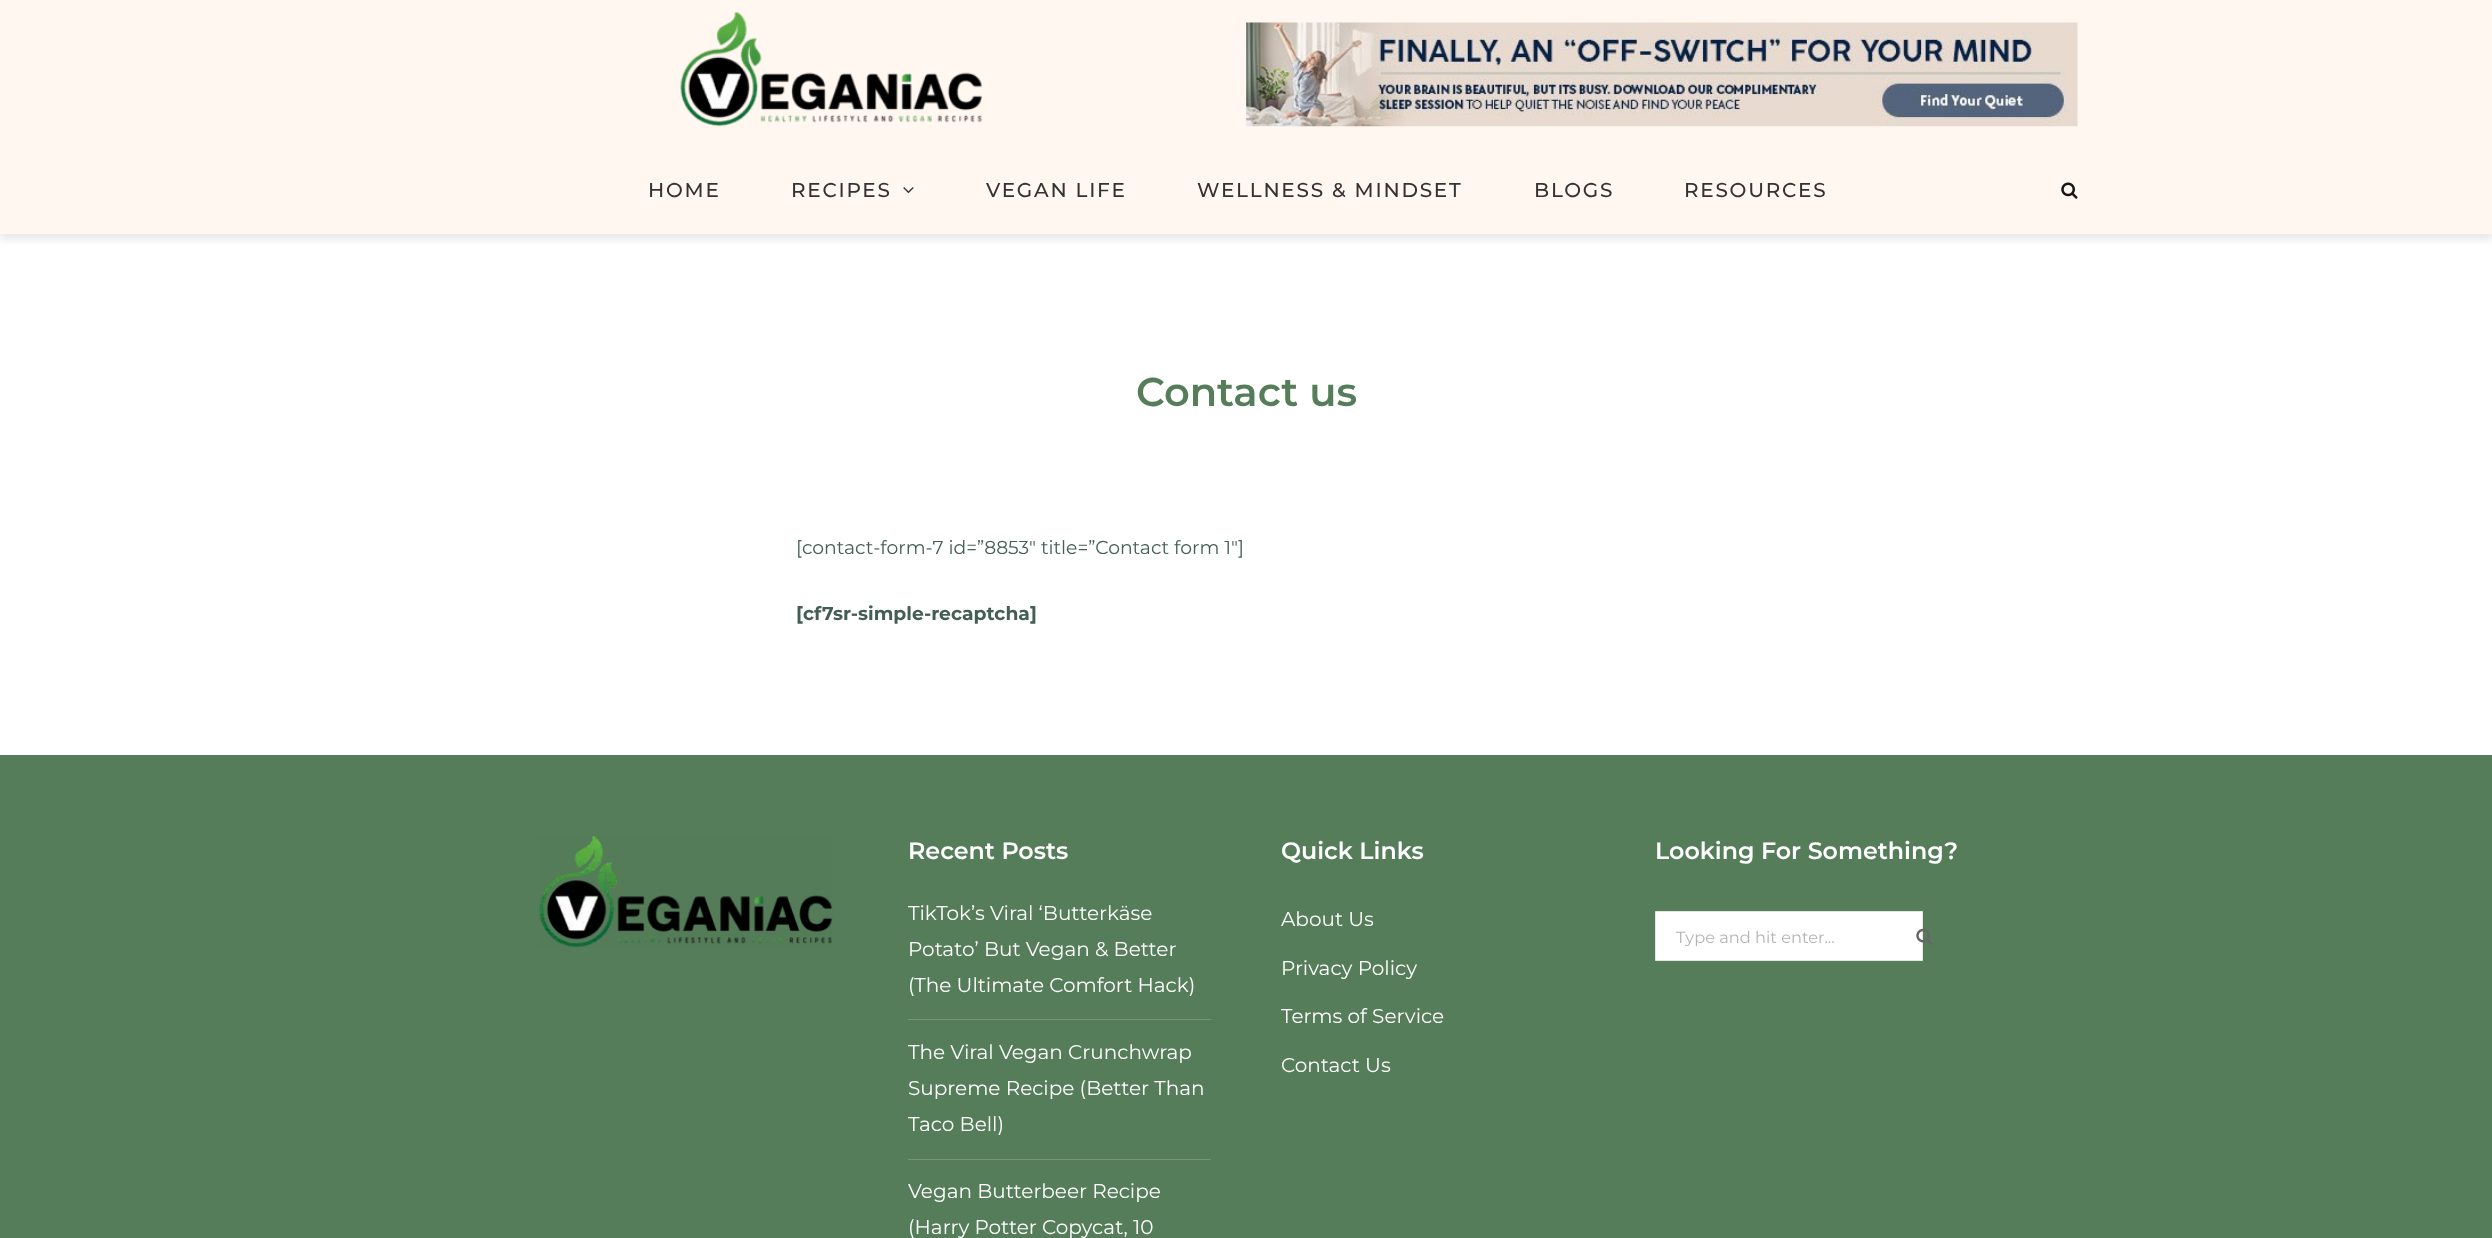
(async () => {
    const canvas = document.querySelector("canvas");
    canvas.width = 2492;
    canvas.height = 1238;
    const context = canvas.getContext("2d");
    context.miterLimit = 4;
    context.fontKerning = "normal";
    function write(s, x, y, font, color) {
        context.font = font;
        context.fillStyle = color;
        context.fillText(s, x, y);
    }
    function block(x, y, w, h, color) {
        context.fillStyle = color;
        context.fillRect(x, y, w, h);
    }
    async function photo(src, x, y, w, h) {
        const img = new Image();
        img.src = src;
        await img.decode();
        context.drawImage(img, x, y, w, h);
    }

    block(0, 0, 2492, 1238, "rgb(255, 255, 255)");
    context.fillStyle = "rgba(0, 0, 0, 0.1)";
    context.filter = "blur(5px)";
    context.beginPath();
    context.rect(0, 5, 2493, 234);
    context.fill();
    context.filter = "none";
    block(0, 0, 2492, 234, "rgb(255, 247, 240)");
    await photo("media/1.png", 680, 12, 303, 115);
    await photo("media/2.png", 1246, 22, 832, 105);
    context.letterSpacing = "1.75px";
    write("HOME", 648, 197, "500 20px Montserrat", "rgb(51, 51, 51)");
    write("RECIPES", 791, 197, "500 20px Montserrat", "rgb(51, 51, 51)");
    await photo("media/3.png", 903, 187, 11, 7);
    write("VEGAN LIFE", 986, 197, "500 20px Montserrat", "rgb(51, 51, 51)");
    write("WELLNESS & MINDSET", 1197, 197, "500 20px Montserrat", "rgb(51, 51, 51)");
    write("BLOGS", 1534, 197, "500 20px Montserrat", "rgb(51, 51, 51)");
    write("RESOURCES", 1684, 197, "500 20px Montserrat", "rgb(51, 51, 51)");
    await photo("media/4.png", 2061, 182, 17, 17);
    context.letterSpacing = "0px";
    write("Contact us", 1136, 406, "600 40px Montserrat", "rgb(86, 125, 90)");
    write("[contact-form-7 id=”8853″ title=”Contact form 1″]", 796, 554, "18.75px Montserrat", "rgb(67, 94, 85)");
    write("[cf7sr-simple-recaptcha]", 796, 620, "bold 18.75px Montserrat", "rgb(67, 94, 85)");
    block(0, 755, 2492, 483, "rgb(86, 125, 90)");
    await photo("media/5.png", 539, 836, 294, 112);
    write("Recent Posts", 908, 859, "600 23.75px Montserrat", "rgb(255, 255, 255)");
    block(908, 1019, 303, 1, "rgb(118, 150, 121)");
    write("TikTok’s Viral ‘Butterkäse", 908, 920, "20px Montserrat", "rgb(255, 255, 255)");
    write("Potato’ But Vegan & Better", 908, 956, "20px Montserrat", "rgb(255, 255, 255)");
    write("(The Ultimate Comfort Hack)", 908, 992, "20px Montserrat", "rgb(255, 255, 255)");
    block(908, 1159, 303, 1, "rgb(118, 150, 121)");
    write("The Viral Vegan Crunchwrap", 908, 1059, "20px Montserrat", "rgb(255, 255, 255)");
    write("Supreme Recipe (Better Than", 908, 1095, "20px Montserrat", "rgb(255, 255, 255)");
    write("Taco Bell)", 908, 1131, "20px Montserrat", "rgb(255, 255, 255)");
    write("Vegan Butterbeer Recipe", 908, 1198, "20px Montserrat", "rgb(255, 255, 255)");
    write("(Harry Potter Copycat, 10", 908, 1234, "20px Montserrat", "rgb(255, 255, 255)");
    write("Quick Links", 1281, 859, "600 23.75px Montserrat", "rgb(255, 255, 255)");
    write("About Us", 1281, 926, "20px Montserrat", "rgb(255, 255, 255)");
    write("Privacy Policy", 1281, 975, "20px Montserrat", "rgb(255, 255, 255)");
    write("Terms of Service", 1281, 1023, "20px Montserrat", "rgb(255, 255, 255)");
    write("Contact Us", 1281, 1072, "20px Montserrat", "rgb(255, 255, 255)");
    write("Looking For Something?", 1655, 859, "600 23.75px Montserrat", "rgb(255, 255, 255)");
    context.beginPath();
    context.rect(1655.5, 911.5, 267, 49);
    context.fill();
    context.strokeStyle = "rgb(229, 229, 229)";
    context.stroke();
    context.save();
    context.beginPath();
    context.rect(1676, 926, 220, 20);
    context.clip();
    write("Type and hit enter...", 1676, 943, "16.25px Montserrat", "rgb(180, 180, 180)");
    context.restore();
    await photo("media/6.png", 1916, 928, 17, 17);
})();
